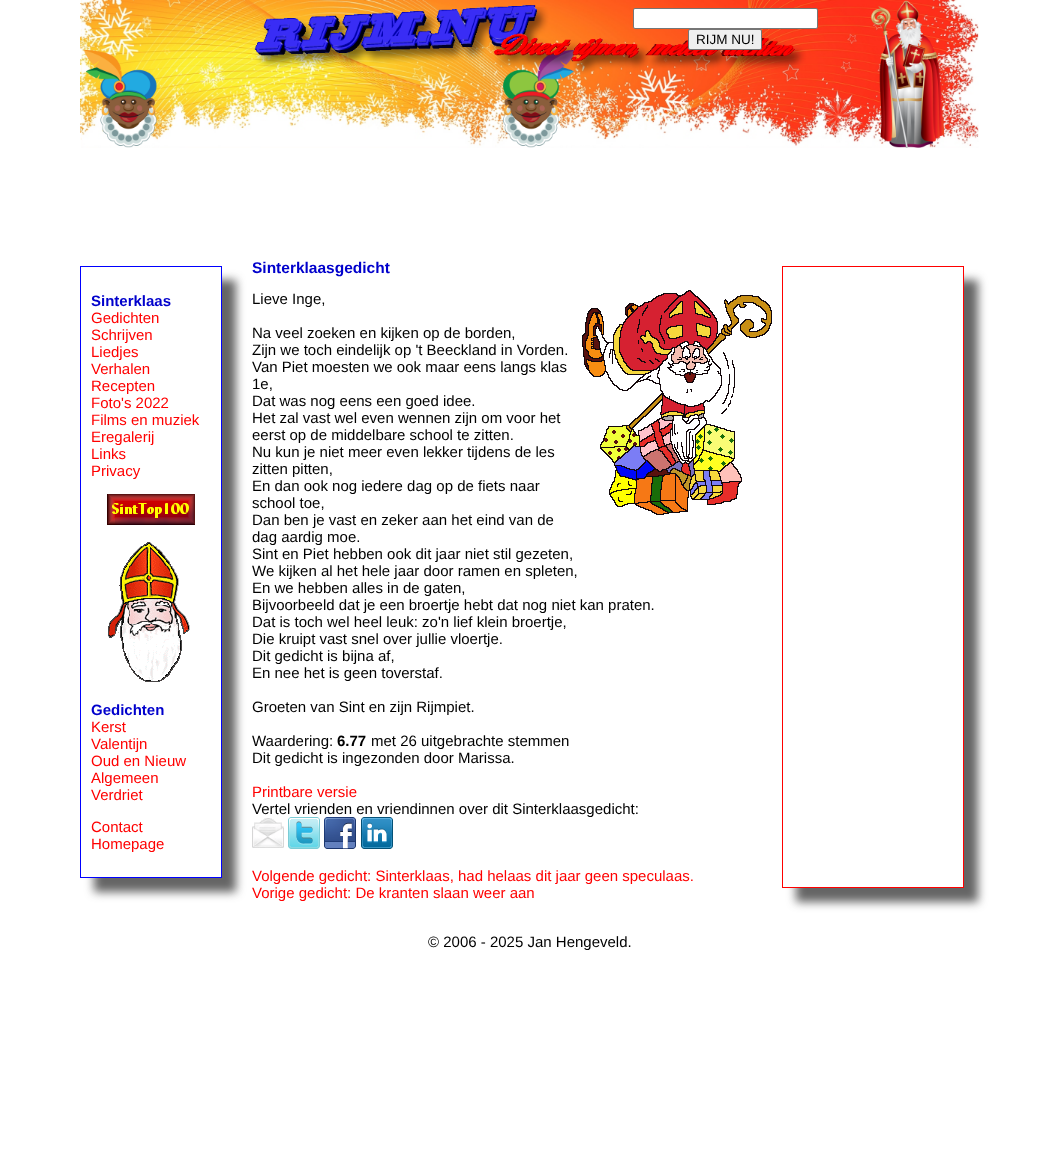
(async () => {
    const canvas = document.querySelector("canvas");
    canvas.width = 1060;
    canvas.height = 1159;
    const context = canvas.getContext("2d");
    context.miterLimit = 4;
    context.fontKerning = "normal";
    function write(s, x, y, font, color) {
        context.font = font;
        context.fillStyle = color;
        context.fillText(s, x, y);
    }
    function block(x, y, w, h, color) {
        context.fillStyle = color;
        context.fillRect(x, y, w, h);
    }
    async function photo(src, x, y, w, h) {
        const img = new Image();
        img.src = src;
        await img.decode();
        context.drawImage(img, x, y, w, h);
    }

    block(0, 0, 1060, 1159, "rgb(255, 255, 255)");
    await photo("media/1.png", 80, 0, 899, 148);
    context.beginPath();
    context.roundRect(633.5, 8.5, 184, 20, 1.5);
    context.fill();
    context.strokeStyle = "rgb(118, 118, 118)";
    context.stroke();
    context.fillStyle = "rgb(239, 239, 239)";
    context.beginPath();
    context.roundRect(688.5, 29.5, 73, 20, 1.5);
    context.fill();
    context.stroke();
    write("RIJM NU!", 696, 44, "13.5px Liberation Sans", "rgb(0, 0, 0)");
    context.save();
    context.beginPath();
    context.moveTo(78, 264);
    context.lineTo(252, 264);
    context.lineTo(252, 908);
    context.lineTo(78, 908);
    context.closePath();
    context.moveTo(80, 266);
    context.lineTo(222, 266);
    context.lineTo(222, 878);
    context.lineTo(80, 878);
    context.closePath();
    context.clip("evenodd");
    context.fillStyle = "rgba(50, 50, 50, 0.75)";
    context.filter = "blur(5px)";
    context.beginPath();
    context.rect(94, 280, 142, 612);
    context.fill();
    context.filter = "none";
    context.restore();
    context.strokeStyle = "rgb(0, 0, 255)";
    context.strokeRect(80.5, 266.5, 141, 611);
    write("Sinterklaas", 91, 306, "bold 15px Liberation Sans", "rgb(0, 0, 204)");
    write("Gedichten", 91, 323, "15px Liberation Sans", "rgb(255, 0, 0)");
    write("Schrijven", 91, 340, "15px Liberation Sans", "rgb(255, 0, 0)");
    write("Liedjes", 91, 357, "15px Liberation Sans", "rgb(255, 0, 0)");
    write("Verhalen", 91, 374, "15px Liberation Sans", "rgb(255, 0, 0)");
    write("Recepten", 91, 391, "15px Liberation Sans", "rgb(255, 0, 0)");
    write("Foto's 2022", 91, 408, "15px Liberation Sans", "rgb(255, 0, 0)");
    write("Films en muziek", 91, 425, "15px Liberation Sans", "rgb(255, 0, 0)");
    write("Eregalerij", 91, 442, "15px Liberation Sans", "rgb(255, 0, 0)");
    write("Links", 91, 459, "15px Liberation Sans", "rgb(255, 0, 0)");
    write("Privacy", 91, 476, "15px Liberation Sans", "rgb(255, 0, 0)");
    await photo("media/2.png", 107, 494, 88, 31);
    await photo("media/3.png", 108, 542, 82, 140);
    write("Gedichten", 91, 715, "bold 15px Liberation Sans", "rgb(0, 0, 204)");
    write("Kerst", 91, 732, "15px Liberation Sans", "rgb(255, 0, 0)");
    write("Valentijn", 91, 749, "15px Liberation Sans", "rgb(255, 0, 0)");
    write("Oud en Nieuw", 91, 766, "15px Liberation Sans", "rgb(255, 0, 0)");
    write("Algemeen", 91, 783, "15px Liberation Sans", "rgb(255, 0, 0)");
    write("Verdriet", 91, 800, "15px Liberation Sans", "rgb(255, 0, 0)");
    write("Contact", 91, 832, "15px Liberation Sans", "rgb(255, 0, 0)");
    write("Homepage", 91, 849, "15px Liberation Sans", "rgb(255, 0, 0)");
    write("Sinterklaasgedicht", 252, 273, "bold 15.5px Liberation Sans", "rgb(0, 0, 204)");
    write("Lieve Inge,", 252, 304, "15px Liberation Sans", "rgb(0, 0, 0)");
    await photo("media/4.png", 582, 290, 190, 225);
    write("Na veel zoeken en kijken op de borden,", 252, 338, "15px Liberation Sans", "rgb(0, 0, 0)");
    write("Zijn we toch eindelijk op 't Beeckland in Vorden.", 252, 355, "15px Liberation Sans", "rgb(0, 0, 0)");
    write("Van Piet moesten we ook maar eens langs klas", 252, 372, "15px Liberation Sans", "rgb(0, 0, 0)");
    write("1e,", 252, 389, "15px Liberation Sans", "rgb(0, 0, 0)");
    write("Dat was nog eens een goed idee.", 252, 406, "15px Liberation Sans", "rgb(0, 0, 0)");
    write("Het zal vast wel even wennen zijn om voor het", 252, 423, "15px Liberation Sans", "rgb(0, 0, 0)");
    write("eerst op de middelbare school te zitten.", 252, 440, "15px Liberation Sans", "rgb(0, 0, 0)");
    write("Nu kun je niet meer even lekker tijdens de les", 252, 457, "15px Liberation Sans", "rgb(0, 0, 0)");
    write("zitten pitten,", 252, 474, "15px Liberation Sans", "rgb(0, 0, 0)");
    write("En dan ook nog iedere dag op de fiets naar", 252, 491, "15px Liberation Sans", "rgb(0, 0, 0)");
    write("school toe,", 252, 508, "15px Liberation Sans", "rgb(0, 0, 0)");
    write("Dan ben je vast en zeker aan het eind van de", 252, 525, "15px Liberation Sans", "rgb(0, 0, 0)");
    write("dag aardig moe.", 252, 542, "15px Liberation Sans", "rgb(0, 0, 0)");
    write("Sint en Piet hebben ook dit jaar niet stil gezeten,", 252, 559, "15px Liberation Sans", "rgb(0, 0, 0)");
    write("We kijken al het hele jaar door ramen en spleten,", 252, 576, "15px Liberation Sans", "rgb(0, 0, 0)");
    write("En we hebben alles in de gaten,", 252, 593, "15px Liberation Sans", "rgb(0, 0, 0)");
    write("Bijvoorbeeld dat je een broertje hebt dat nog niet kan praten.", 252, 610, "15px Liberation Sans", "rgb(0, 0, 0)");
    write("Dat is toch wel heel leuk: zo'n lief klein broertje,", 252, 627, "15px Liberation Sans", "rgb(0, 0, 0)");
    write("Die kruipt vast snel over jullie vloertje.", 252, 644, "15px Liberation Sans", "rgb(0, 0, 0)");
    write("Dit gedicht is bijna af,", 252, 661, "15px Liberation Sans", "rgb(0, 0, 0)");
    write("En nee het is geen toverstaf.", 252, 678, "15px Liberation Sans", "rgb(0, 0, 0)");
    write("Groeten van Sint en zijn Rijmpiet.", 252, 712, "15px Liberation Sans", "rgb(0, 0, 0)");
    write("Waardering:", 252, 746, "15px Liberation Sans", "rgb(0, 0, 0)");
    write("6.77", 337, 746, "bold 15px Liberation Sans", "rgb(0, 0, 0)");
    write("met 26 uitgebrachte stemmen", 371, 746, "15px Liberation Sans", "rgb(0, 0, 0)");
    write("Dit gedicht is ingezonden door Marissa.", 252, 763, "15px Liberation Sans", "rgb(0, 0, 0)");
    write("Printbare versie", 252, 797, "15px Liberation Sans", "rgb(255, 0, 0)");
    write("Vertel vrienden en vriendinnen over dit Sinterklaasgedicht:", 252, 814, "15px Liberation Sans", "rgb(0, 0, 0)");
    await photo("media/5.png", 252, 818, 32, 30);
    await photo("media/6.png", 288, 817, 32, 32);
    await photo("media/7.png", 324, 817, 32, 32);
    await photo("media/8.png", 361, 817, 32, 32);
    write("Volgende gedicht: Sinterklaas, had helaas dit jaar geen speculaas.", 252, 881, "15px Liberation Sans", "rgb(255, 0, 0)");
    write("Vorige gedicht: De kranten slaan weer aan", 252, 898, "15px Liberation Sans", "rgb(255, 0, 0)");
    context.save();
    context.beginPath();
    context.moveTo(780, 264);
    context.lineTo(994, 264);
    context.lineTo(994, 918);
    context.lineTo(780, 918);
    context.closePath();
    context.moveTo(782, 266);
    context.lineTo(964, 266);
    context.lineTo(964, 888);
    context.lineTo(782, 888);
    context.closePath();
    context.clip("evenodd");
    context.fillStyle = "rgba(50, 50, 50, 0.75)";
    context.filter = "blur(5px)";
    context.beginPath();
    context.rect(796, 280, 182, 622);
    context.fill();
    context.filter = "none";
    context.restore();
    context.strokeStyle = "rgb(255, 0, 0)";
    context.strokeRect(782.5, 266.5, 181, 621);
    write("© 2006 - 2025 Jan Hengeveld.", 428, 947, "15px Liberation Sans", "rgb(0, 0, 0)");
})();
